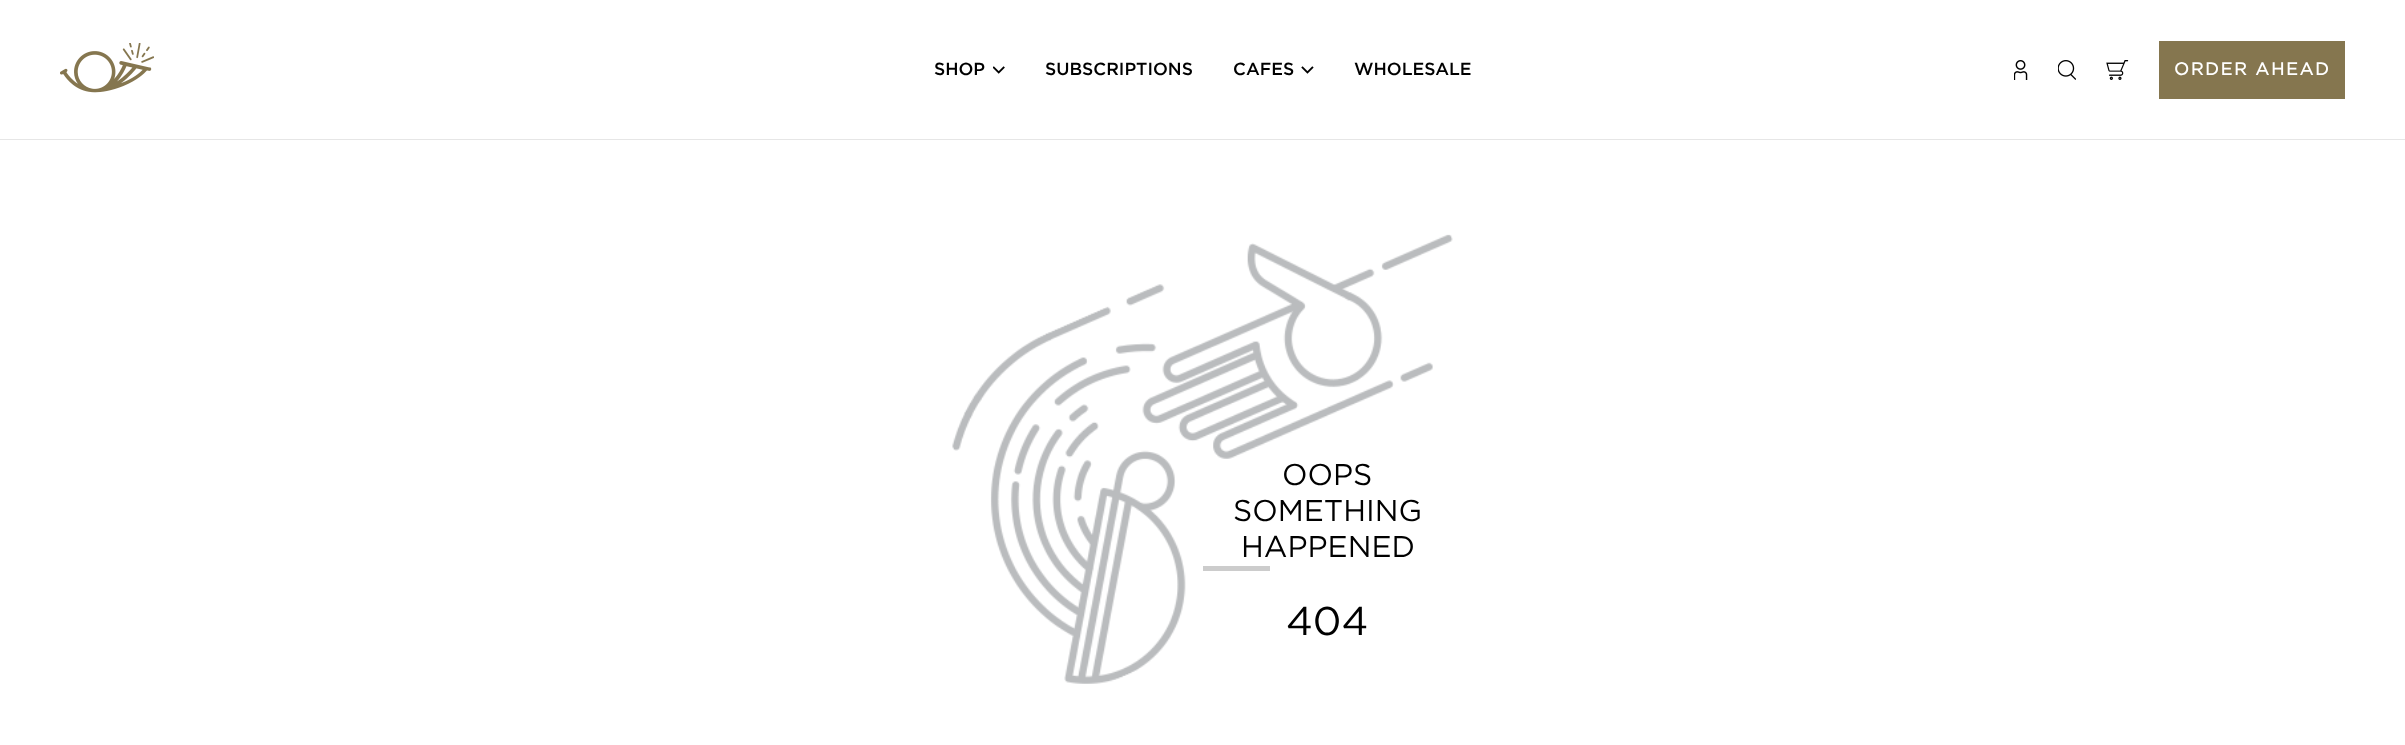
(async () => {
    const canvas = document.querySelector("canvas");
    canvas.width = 2405;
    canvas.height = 745;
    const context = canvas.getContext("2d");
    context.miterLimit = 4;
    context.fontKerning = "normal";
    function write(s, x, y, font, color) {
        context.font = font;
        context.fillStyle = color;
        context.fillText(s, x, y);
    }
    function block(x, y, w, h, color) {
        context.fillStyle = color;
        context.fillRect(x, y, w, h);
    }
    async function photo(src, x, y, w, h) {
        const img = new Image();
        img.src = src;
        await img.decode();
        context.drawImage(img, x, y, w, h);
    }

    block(0, 0, 2405, 745, "rgb(255, 255, 255)");
    await photo("media/1.png", 60, 43, 94, 50);
    write("SHOP", 934, 75, "500 17.5px Gotham", "rgb(0, 0, 0)");
    await photo("media/2.png", 993, 66, 12, 8);
    write("SUBSCRIPTIONS", 1045, 75, "500 17.5px Gotham", "rgb(0, 0, 0)");
    write("CAFES", 1233, 75, "500 17.5px Gotham", "rgb(0, 0, 0)");
    await photo("media/3.png", 1301, 66, 13, 8);
    write("WHOLESALE", 1354, 75, "500 17.5px Gotham", "rgb(0, 0, 0)");
    await photo("media/4.png", 2014, 60, 14, 20);
    await photo("media/5.png", 2058, 60, 18, 20);
    await photo("media/6.png", 2106, 60, 23, 20);
    block(2159, 41, 186, 58, "rgb(133, 118, 79)");
    context.letterSpacing = "1.75px";
    write("ORDER AHEAD", 2174, 75, "bold 17.5px Gotham", "rgb(255, 255, 255)");
    block(0, 139, 2405, 1, "rgb(230, 230, 230)");
    await photo("media/7.png", 952, 234, 501, 450);
    context.letterSpacing = "0px";
    write("OOPS", 1282, 485, "30px Gotham", "rgb(0, 0, 0)");
    write("SOMETHING", 1233, 521, "30px Gotham", "rgb(0, 0, 0)");
    write("HAPPENED", 1241, 557, "30px Gotham", "rgb(0, 0, 0)");
    block(1203, 566, 67, 5, "rgb(204, 204, 204)");
    write("404", 1286, 635, "40px Gotham", "rgb(0, 0, 0)");
})();
